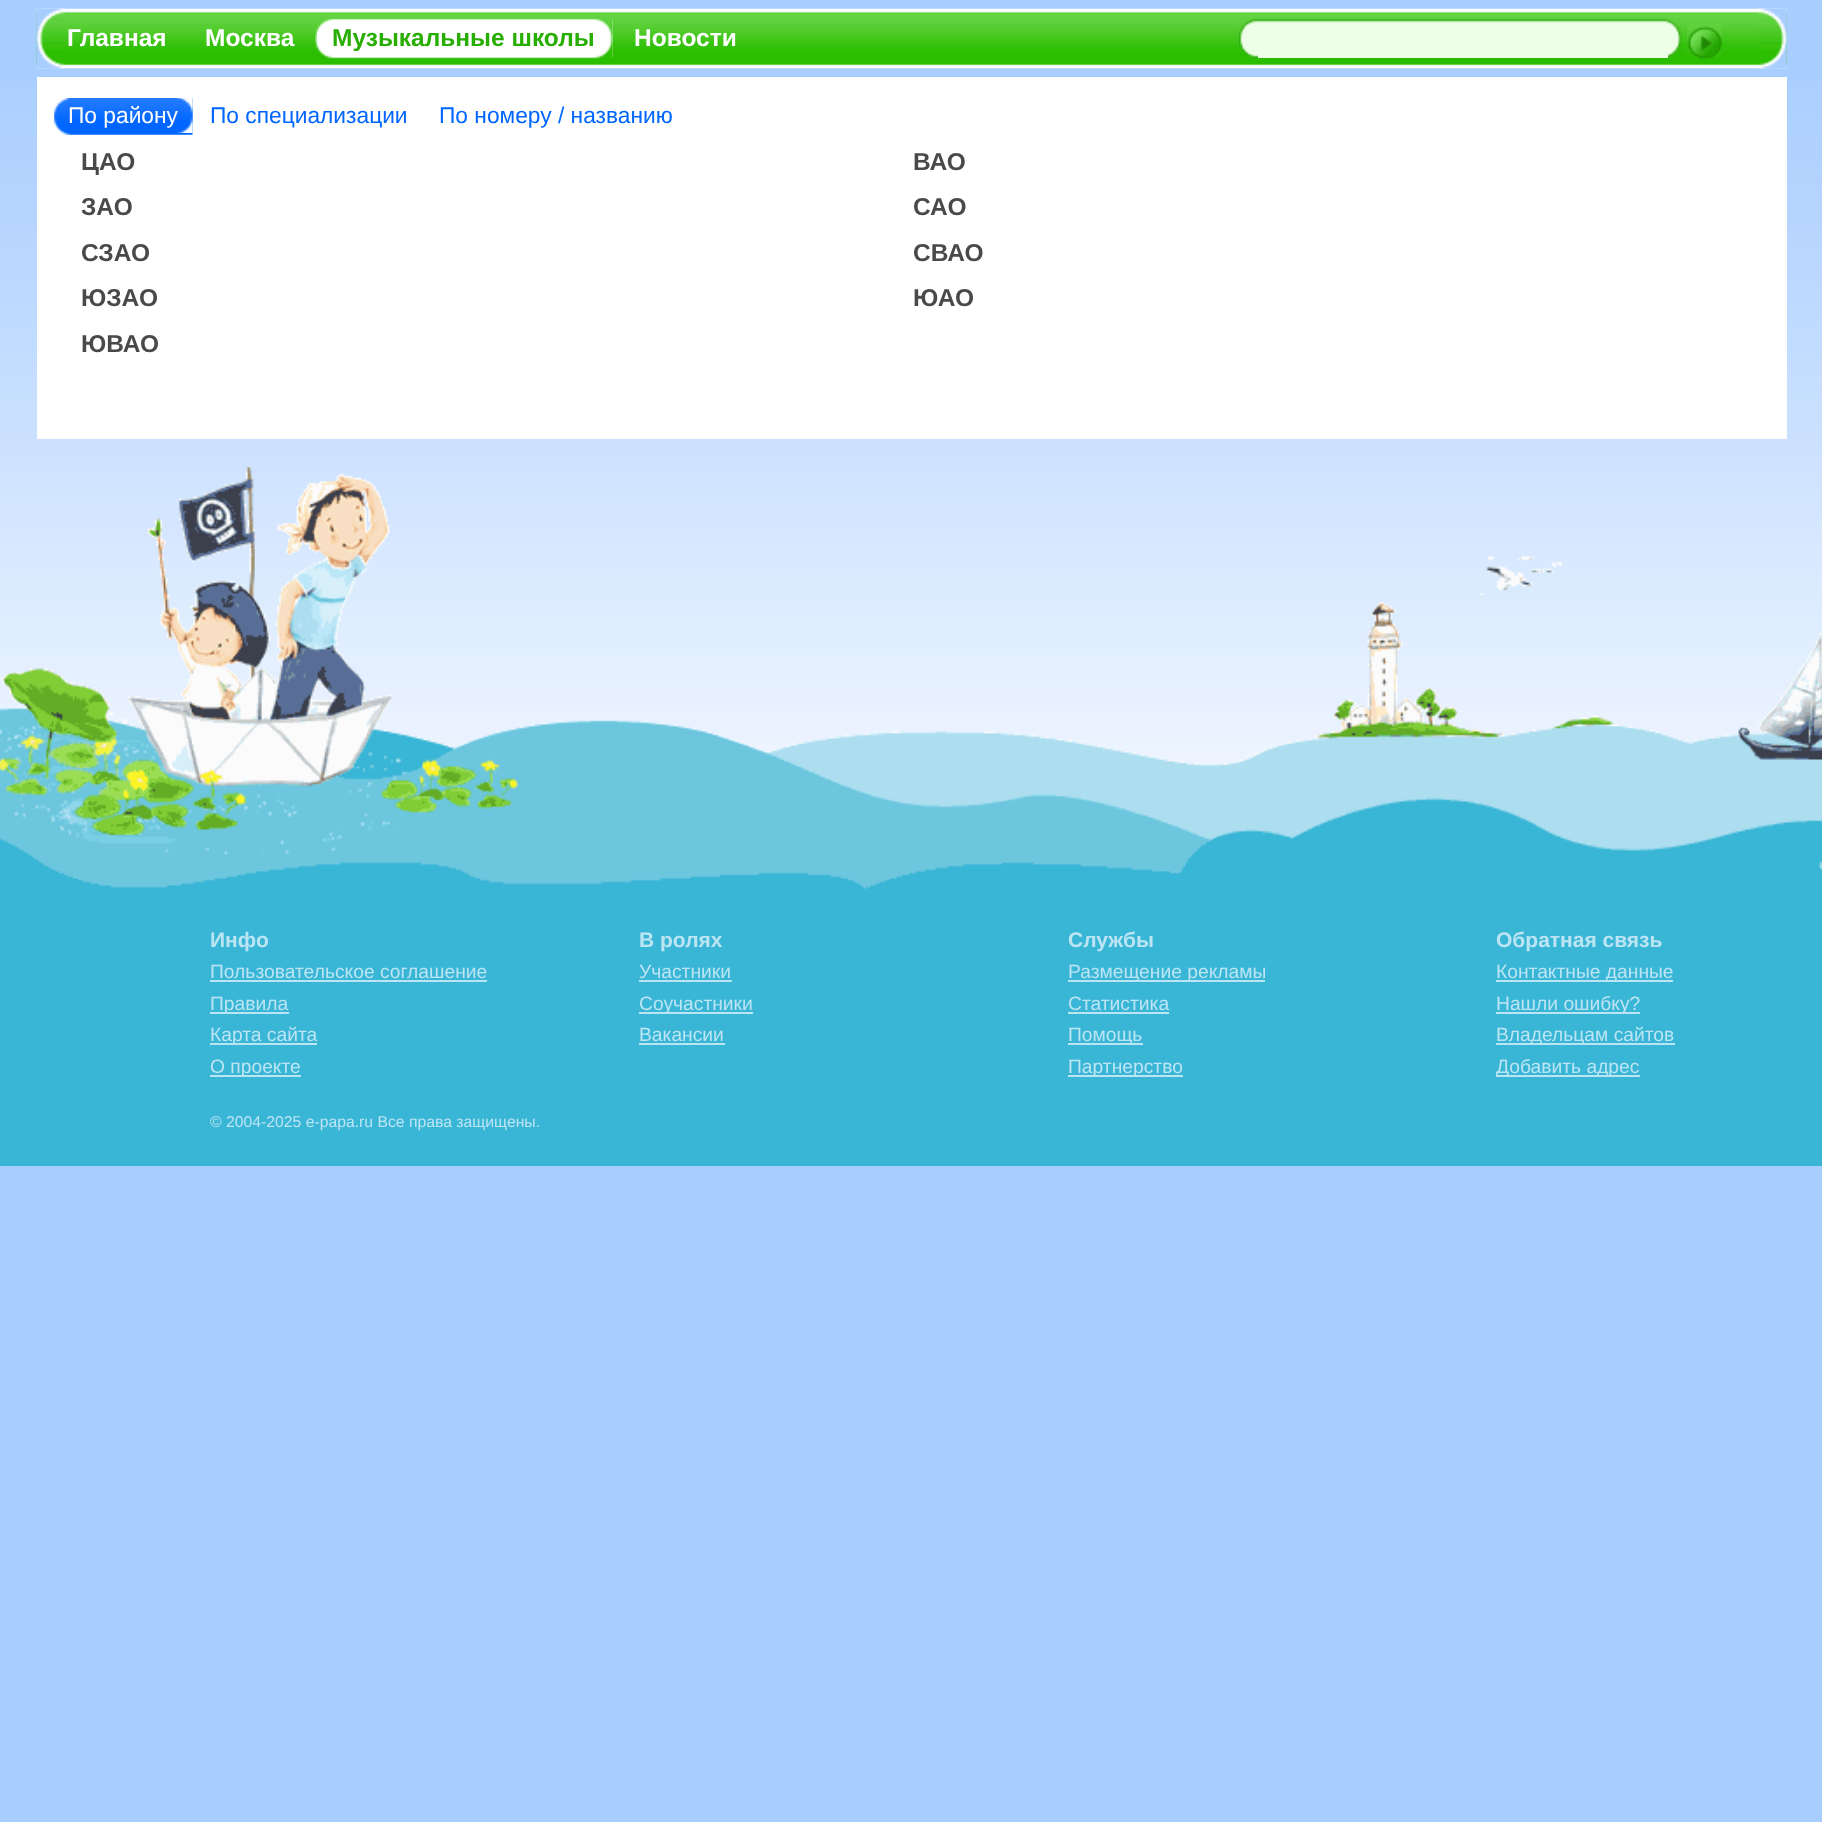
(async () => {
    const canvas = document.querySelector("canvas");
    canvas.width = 1822;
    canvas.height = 1822;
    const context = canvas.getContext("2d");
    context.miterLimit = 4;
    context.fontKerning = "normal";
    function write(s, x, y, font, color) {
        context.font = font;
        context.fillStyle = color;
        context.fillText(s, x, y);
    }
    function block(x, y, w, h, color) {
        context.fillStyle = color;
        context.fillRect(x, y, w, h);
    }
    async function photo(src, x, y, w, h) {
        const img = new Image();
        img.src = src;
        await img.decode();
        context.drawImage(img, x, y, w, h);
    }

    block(0, 0, 1822, 1822, "rgb(168, 205, 255)");
    await photo("media/1.png", 0, 81, 1822, 685);
    await photo("media/2.png", 36, 8, 1751, 61);
    await photo("media/3.png", 36, 8, 29, 61);
    write("Главная", 67, 46, "bold 24.5px Liberation Sans", "rgb(255, 255, 255)");
    write("Москва", 205, 46, "bold 24.5px Liberation Sans", "rgb(255, 255, 255)");
    await photo("media/4.png", 315, 18, 298, 41);
    await photo("media/5.png", 594, 18, 19, 41);
    write("Музыкальные школы", 332, 46, "bold 24.5px Liberation Sans", "rgb(40, 173, 1)");
    write("Новости", 634, 46, "bold 24.5px Liberation Sans", "rgb(255, 255, 255)");
    await photo("media/6.png", 1239, 19, 443, 39);
    block(1258, 53, 410, 5, "rgb(237, 255, 231)");
    await photo("media/7.png", 1687, 23, 35, 37);
    await photo("media/8.png", 1758, 8, 29, 61);
    block(37, 77, 1750, 362, "rgb(255, 255, 255)");
    await photo("media/9.png", 54, 98, 139, 37);
    await photo("media/10.png", 68, 98, 125, 35);
    write("По району", 68, 123, "22.75px Liberation Sans", "rgb(255, 255, 255)");
    write("По специализации", 210, 123, "22.75px Liberation Sans", "rgb(0, 102, 255)");
    write("По номеру / названию", 439, 123, "22.75px Liberation Sans", "rgb(0, 102, 255)");
    write("ЦАО", 81, 170, "bold 24.5px Liberation Sans", "rgb(73, 73, 73)");
    write("ВАО", 913, 170, "bold 24.5px Liberation Sans", "rgb(73, 73, 73)");
    write("ЗАО", 81, 215, "bold 24.5px Liberation Sans", "rgb(73, 73, 73)");
    write("САО", 913, 215, "bold 24.5px Liberation Sans", "rgb(73, 73, 73)");
    write("СЗАО", 81, 261, "bold 24.5px Liberation Sans", "rgb(73, 73, 73)");
    write("СВАО", 913, 261, "bold 24.5px Liberation Sans", "rgb(73, 73, 73)");
    write("ЮЗАО", 81, 306, "bold 24.5px Liberation Sans", "rgb(73, 73, 73)");
    write("ЮАО", 913, 306, "bold 24.5px Liberation Sans", "rgb(73, 73, 73)");
    write("ЮВАО", 81, 352, "bold 24.5px Liberation Sans", "rgb(73, 73, 73)");
    await photo("media/11.png", 0, 466, 1822, 423);
    block(0, 889, 1822, 277, "rgb(57, 181, 214)");
    write("Инфо", 210, 947, "bold 21px Liberation Sans", "rgb(188, 229, 244)");
    write("Пользовательское соглашение", 210, 978, "19.25px Liberation Sans", "rgb(188, 229, 244)");
    block(210, 980, 277, 2, "rgb(188, 229, 244)");
    block(210, 1012, 79, 2, "rgb(188, 229, 244)");
    write("Правила", 210, 1010, "19.25px Liberation Sans", "rgb(188, 229, 244)");
    block(210, 1043, 107, 2, "rgb(188, 229, 244)");
    write("Карта сайта", 210, 1041, "19.25px Liberation Sans", "rgb(188, 229, 244)");
    block(210, 1075, 91, 2, "rgb(188, 229, 244)");
    write("О проекте", 210, 1073, "19.25px Liberation Sans", "rgb(188, 229, 244)");
    write("В ролях", 639, 947, "bold 21px Liberation Sans", "rgb(188, 229, 244)");
    write("Участники", 639, 978, "19.25px Liberation Sans", "rgb(188, 229, 244)");
    block(639, 980, 93, 2, "rgb(188, 229, 244)");
    block(639, 1012, 114, 2, "rgb(188, 229, 244)");
    write("Соучастники", 639, 1010, "19.25px Liberation Sans", "rgb(188, 229, 244)");
    write("Вакансии", 639, 1041, "19.25px Liberation Sans", "rgb(188, 229, 244)");
    block(639, 1043, 86, 2, "rgb(188, 229, 244)");
    write("Службы", 1068, 947, "bold 21px Liberation Sans", "rgb(188, 229, 244)");
    block(1068, 980, 197, 2, "rgb(188, 229, 244)");
    write("Размещение рекламы", 1068, 978, "19.25px Liberation Sans", "rgb(188, 229, 244)");
    write("Статистика", 1068, 1010, "19.25px Liberation Sans", "rgb(188, 229, 244)");
    block(1068, 1012, 101, 2, "rgb(188, 229, 244)");
    block(1068, 1043, 75, 2, "rgb(188, 229, 244)");
    write("Помощь", 1068, 1041, "19.25px Liberation Sans", "rgb(188, 229, 244)");
    block(1068, 1075, 115, 2, "rgb(188, 229, 244)");
    write("Партнерство", 1068, 1073, "19.25px Liberation Sans", "rgb(188, 229, 244)");
    write("Обратная связь", 1496, 947, "bold 21px Liberation Sans", "rgb(188, 229, 244)");
    block(1496, 980, 177, 2, "rgb(188, 229, 244)");
    write("Контактные данные", 1496, 978, "19.25px Liberation Sans", "rgb(188, 229, 244)");
    block(1496, 1012, 144, 2, "rgb(188, 229, 244)");
    write("Нашли ошибку?", 1496, 1010, "19.25px Liberation Sans", "rgb(188, 229, 244)");
    block(1496, 1043, 179, 2, "rgb(188, 229, 244)");
    write("Владельцам сайтов", 1496, 1041, "19.25px Liberation Sans", "rgb(188, 229, 244)");
    block(1496, 1075, 144, 2, "rgb(188, 229, 244)");
    write("Добавить адрес", 1496, 1073, "19.25px Liberation Sans", "rgb(188, 229, 244)");
    write("© 2004-2025 e-papa.ru Все права защищены.", 210, 1127, "15.75px Liberation Sans", "rgb(188, 229, 244)");
})();
